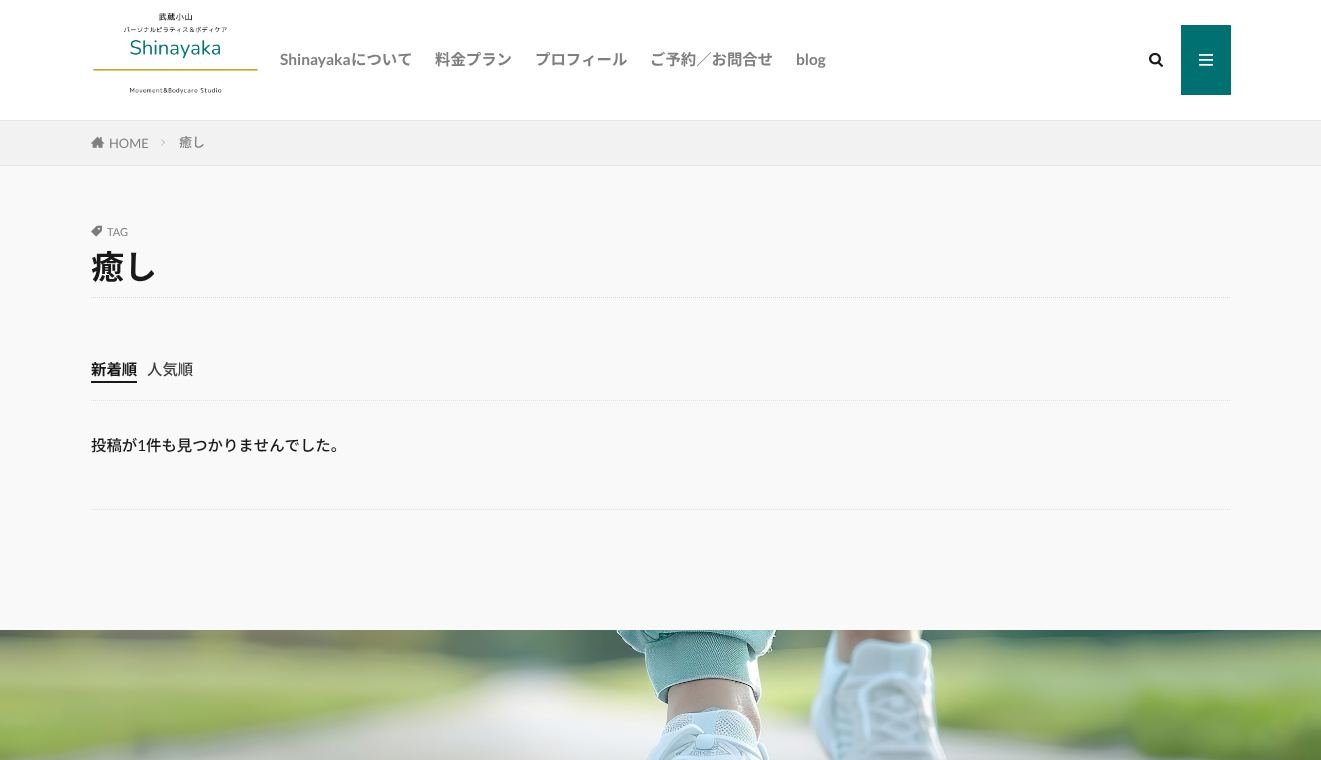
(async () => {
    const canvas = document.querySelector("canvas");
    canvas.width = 1321;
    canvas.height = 760;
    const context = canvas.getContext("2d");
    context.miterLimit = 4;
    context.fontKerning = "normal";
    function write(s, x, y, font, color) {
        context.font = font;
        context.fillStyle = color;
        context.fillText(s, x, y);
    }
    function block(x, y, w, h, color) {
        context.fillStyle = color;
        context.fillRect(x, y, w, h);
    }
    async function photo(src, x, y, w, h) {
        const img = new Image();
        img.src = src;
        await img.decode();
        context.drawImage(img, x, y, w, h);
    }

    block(0, 0, 1321, 760, "rgb(249, 249, 249)");
    block(0, 0, 1321, 120, "rgb(255, 255, 255)");
    block(0, 120, 1321, 1, "rgb(230, 230, 230)");
    await photo("media/1.png", 93, 13, 165, 82);
    write("Shinayaka", 280, 65, "bold 15.4px Lato", "rgb(127, 127, 127)");
    write("について", 351, 65, "bold 15.4px Noto Sans JP", "rgb(127, 127, 127)");
    write("料金プラン", 435, 65, "bold 15.4px Noto Sans JP", "rgb(127, 127, 127)");
    write("プロフィール", 535, 65, "bold 15.4px Noto Sans JP", "rgb(127, 127, 127)");
    write("ご予約／お問合せ", 650, 65, "bold 15.4px Noto Sans JP", "rgb(127, 127, 127)");
    write("blog", 796, 65, "bold 15.4px Lato", "rgb(127, 127, 127)");
    await photo("media/2.png", 1149, 52, 14, 15);
    block(1181, 25, 50, 70, "rgb(0, 112, 112)");
    await photo("media/3.png", 1199, 54, 14, 12);
    block(0, 121, 1321, 44, "rgb(242, 242, 242)");
    block(0, 165, 1321, 1, "rgb(230, 230, 230)");
    await photo("media/4.png", 91, 136, 14, 12);
    write("HOME", 109, 148, "13px Lato", "rgb(127, 127, 127)");
    context.fillStyle = "rgb(191, 191, 191)";
    context.beginPath();
    context.moveTo(161.5, 139);
    context.lineTo(165, 142.5);
    context.lineTo(164.5, 143.5);
    context.lineTo(161, 139.5);
    context.closePath();
    context.fill();
    context.beginPath();
    context.moveTo(164.5, 142);
    context.lineTo(165, 142.5);
    context.lineTo(161.5, 146);
    context.lineTo(161, 145.5);
    context.closePath();
    context.fill();
    write("癒し", 179, 147, "500 13px Noto Sans JP", "rgb(127, 127, 127)");
    await photo("media/5.png", 91, 225, 11, 12);
    write("TAG", 107, 236, "11px Lato", "rgb(127, 127, 127)");
    context.beginPath();
    context.moveTo(91, 297.5);
    context.lineTo(1231, 297.5);
    context.strokeStyle = "rgb(216, 216, 216)";
    context.setLineDash([1, 1]);
    context.stroke();
    write("癒し", 91, 279, "bold 33px Noto Sans JP", "rgb(25, 25, 25)");
    context.beginPath();
    context.moveTo(91, 400.5);
    context.lineTo(1231, 400.5);
    context.strokeStyle = "rgb(224, 224, 224)";
    context.stroke();
    write("新着順", 91, 375, "bold 15.4px Noto Sans JP", "rgb(25, 25, 25)");
    block(91, 381, 46, 2, "rgb(25, 25, 25)");
    write("人気順", 147, 375, "500 15.4px Noto Sans JP", "rgb(63, 63, 63)");
    context.beginPath();
    context.moveTo(91, 509.5);
    context.lineTo(1231, 509.5);
    context.stroke();
    write("投稿が", 91, 451, "500 15.4px Noto Sans JP", "rgb(25, 25, 25)");
    write("1", 137, 451, "15.4px Lato", "rgb(25, 25, 25)");
    write("件も見つかりませんでした。", 146, 451, "500 15.4px Noto Sans JP", "rgb(25, 25, 25)");
    await photo("media/6.png", 0, 630, 1321, 130);
})();
